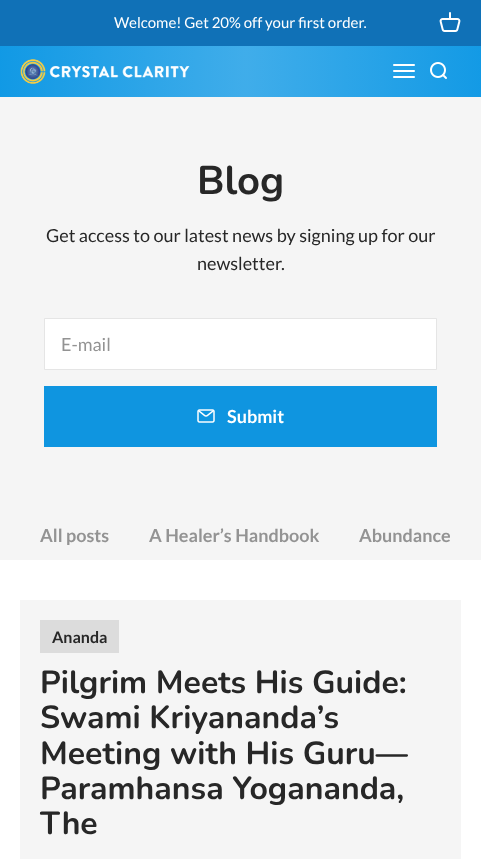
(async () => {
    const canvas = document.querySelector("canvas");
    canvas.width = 481;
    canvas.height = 859;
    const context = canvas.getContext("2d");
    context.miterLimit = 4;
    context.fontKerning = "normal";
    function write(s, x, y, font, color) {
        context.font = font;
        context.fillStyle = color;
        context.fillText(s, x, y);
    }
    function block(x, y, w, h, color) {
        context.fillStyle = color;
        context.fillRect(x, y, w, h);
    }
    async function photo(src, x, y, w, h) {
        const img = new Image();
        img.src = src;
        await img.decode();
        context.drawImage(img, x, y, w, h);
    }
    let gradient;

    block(0, 0, 481, 859, "rgb(255, 255, 255)");
    block(0, 0, 481, 46, "rgb(16, 113, 183)");
    write("Welcome! Get 20% off your first order.", 114, 28, "15px Lato", "rgb(255, 255, 255)");
    await photo("media/1.png", 439, 12, 22, 20);
    gradient = context.createRadialGradient(246, 1.82, 0, 246, 1.82, 336);
    gradient.addColorStop(0, "rgb(64, 173, 234)");
    gradient.addColorStop(1, "rgb(0, 146, 227)");
    context.fillStyle = gradient;
    context.beginPath();
    context.rect(0, 46, 481, 51);
    context.save();
    context.clip();
    context.scale(1, 4617 / 336);
    context.fillRect(0, 0, 481, 63);
    context.restore();
    await photo("media/2.png", 20, 59, 170, 25);
    await photo("media/3.png", 393, 64, 22, 14);
    await photo("media/4.png", 430, 62, 17, 17);
    block(0, 97, 481, 463, "rgb(245, 245, 245)");
    write("Blog", 197, 194, "bold 40px Nunito", "rgb(39, 39, 39)");
    write("Get access to our latest news by signing up for our", 46, 242, "18px Lato", "rgb(39, 39, 39)");
    write("newsletter.", 197, 270, "18px Lato", "rgb(39, 39, 39)");
    context.fillStyle = "rgb(255, 255, 255)";
    context.beginPath();
    context.rect(44.5, 318.5, 392, 51);
    context.fill();
    context.strokeStyle = "rgb(229, 229, 229)";
    context.stroke();
    write("E-mail", 61, 351, "18px Lato", "rgb(147, 147, 147)");
    block(44, 386, 393, 61, "rgb(15, 149, 224)");
    await photo("media/5.png", 197, 409, 18, 14);
    write("Submit", 227, 423, "bold 18px Lato", "rgb(255, 255, 255)");
    write("All posts", 40, 542, "bold 18px Lato", "rgb(147, 147, 147)");
    write("A Healer’s Handbook", 149, 542, "bold 18px Lato", "rgb(147, 147, 147)");
    write("Abundance", 359, 542, "bold 18px Lato", "rgb(147, 147, 147)");
    block(20, 600, 441, 259, "rgb(245, 245, 245)");
    block(40, 620, 79, 33, "rgb(220, 220, 220)");
    write("Ananda", 52, 643, "bold 16px Lato", "rgb(39, 39, 39)");
    write("Pilgrim Meets His Guide:", 40, 693, "bold 32px Nunito", "rgb(39, 39, 39)");
    write("Swami Kriyananda’s", 40, 728, "bold 32px Nunito", "rgb(39, 39, 39)");
    write("Meeting with His Guru—", 40, 764, "bold 32px Nunito", "rgb(39, 39, 39)");
    write("Paramhansa Yogananda,", 40, 799, "bold 32px Nunito", "rgb(39, 39, 39)");
    write("The", 40, 834, "bold 32px Nunito", "rgb(39, 39, 39)");
})();
